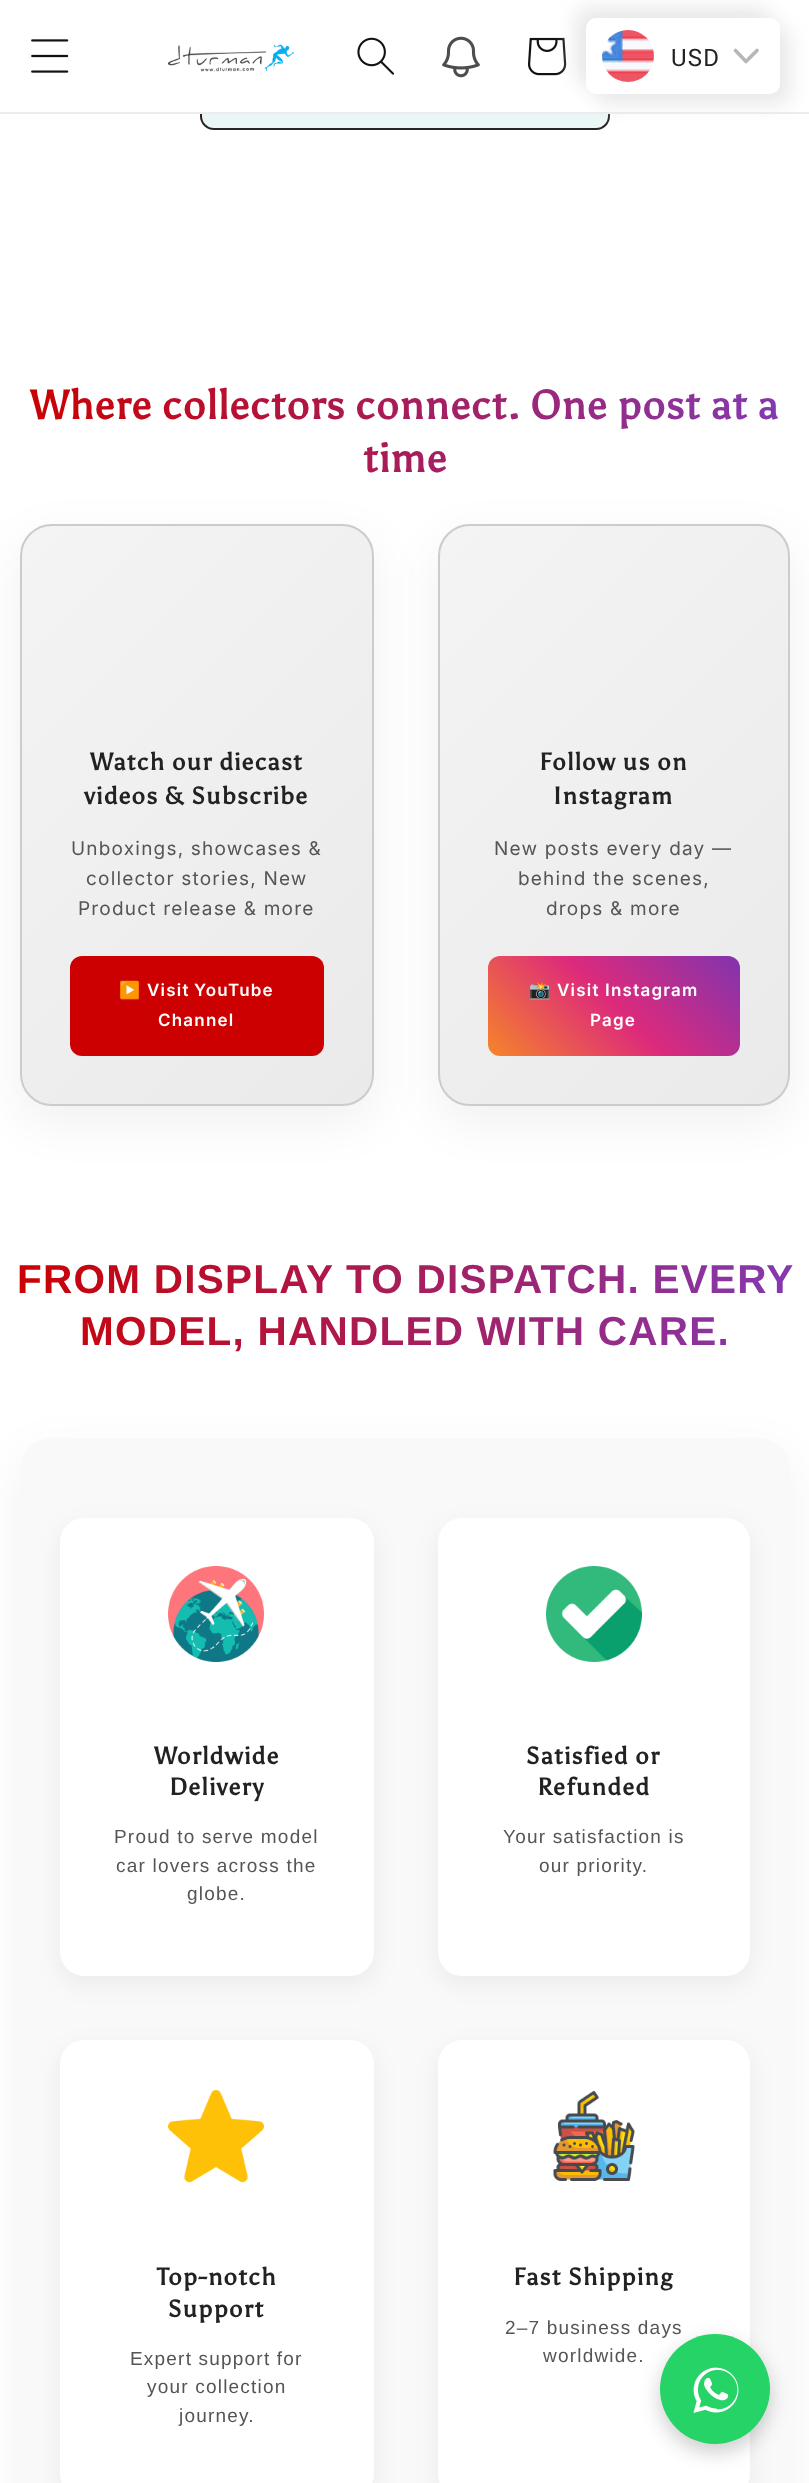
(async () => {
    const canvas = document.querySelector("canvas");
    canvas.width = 809;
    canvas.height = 2483;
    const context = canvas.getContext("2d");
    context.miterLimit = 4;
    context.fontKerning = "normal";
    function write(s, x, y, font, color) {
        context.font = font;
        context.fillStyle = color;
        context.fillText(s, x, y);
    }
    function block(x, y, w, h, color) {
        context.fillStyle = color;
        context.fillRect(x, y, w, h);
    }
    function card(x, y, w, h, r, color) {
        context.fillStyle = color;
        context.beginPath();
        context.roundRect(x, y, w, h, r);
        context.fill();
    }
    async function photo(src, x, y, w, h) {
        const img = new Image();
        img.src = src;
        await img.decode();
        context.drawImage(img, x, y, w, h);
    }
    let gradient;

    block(0, 0, 809, 2483, "rgb(255, 255, 255)");
    context.fillStyle = "rgb(235, 246, 247)";
    context.beginPath();
    context.roundRect(201, 37, 408, 92, 13);
    context.fill();
    context.strokeStyle = "rgb(0, 0, 0)";
    context.lineWidth = 2;
    context.stroke();
    context.beginPath();
    context.roundRect(201.5, 37.5, 407, 91, 12.5);
    context.strokeStyle = "rgba(255, 255, 255, 0.15)";
    context.lineWidth = 3;
    context.stroke();
    block(200, 36, 410, 76, "rgb(255, 255, 255)");
    block(0, 112, 809, 2, "rgb(236, 236, 236)");
    await photo("media/1.png", 31, 39, 38, 34);
    await photo("media/2.png", 168, 44, 126, 28);
    await photo("media/3.png", 357, 37, 37, 38);
    await photo("media/4.png", 442, 36, 38, 42);
    await photo("media/5.png", 528, 37, 39, 39);
    context.fillStyle = "rgb(232, 232, 232)";
    context.filter = "blur(10px)";
    context.beginPath();
    context.roundRect(576, 8, 194, 76, 10);
    context.fill();
    context.filter = "none";
    context.filter = "blur(10px)";
    context.beginPath();
    context.roundRect(596, 28, 194, 76, 10);
    context.fill();
    context.filter = "none";
    card(586, 18, 194, 76, 10, "rgb(255, 255, 255)");
    await photo("media/6.png", 602, 30, 52, 52);
    context.letterSpacing = "1.2px";
    write("USD", 671, 66, "24px Roboto", "rgb(34, 34, 34)");
    context.beginPath();
    context.moveTo(735.5, 50.5);
    context.lineTo(746, 61.5);
    context.lineTo(757, 50.5);
    context.strokeStyle = "rgb(183, 183, 183)";
    context.lineWidth = 3.6;
    context.lineCap = "round";
    context.lineJoin = "round";
    context.stroke();
    context.letterSpacing = "0.8px";
    context.font = "bold 40.5px Asul";
    gradient = context.createLinearGradient(20, 432, 790, 432);
    gradient.addColorStop(0, "rgb(204, 0, 0)");
    gradient.addColorStop(1, "rgb(131, 58, 180)");
    context.fillStyle = gradient;
    context.fillText("Where collectors connect. One post at a", 30, 419);
    context.fillText("time", 363, 472);
    context.fillStyle = "rgba(0, 0, 0, 0.06)";
    context.filter = "blur(24px)";
    context.beginPath();
    context.roundRect(20, 540, 354, 582, 32);
    context.fill();
    context.filter = "none";
    context.save();
    context.beginPath();
    context.roundRect(20, 524, 354, 582, 32);
    context.clip();
    gradient = context.createLinearGradient(-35, 583, 429, 1047);
    gradient.addColorStop(0, "rgb(244, 244, 244)");
    gradient.addColorStop(1, "rgb(234, 234, 234)");
    context.fillStyle = gradient;
    context.fillRect(22, 526, 350, 578);
    context.restore();
    context.beginPath();
    context.roundRect(21, 525, 352, 580, 31);
    context.strokeStyle = "rgb(204, 204, 204)";
    context.lineWidth = 2;
    context.lineJoin = "miter";
    context.stroke();
    context.letterSpacing = "1.2px";
    write("Watch our diecast", 90, 770, "bold 24px Asul", "rgb(34, 34, 34)");
    write("videos & Subscribe", 84, 804, "bold 24px Asul", "rgb(34, 34, 34)");
    write("Unboxings, showcases &", 71, 855, "19px Inter", "rgb(85, 85, 85)");
    write("collector stories, New", 86, 885, "19px Inter", "rgb(85, 85, 85)");
    write("Product release & more", 78, 915, "19px Inter", "rgb(85, 85, 85)");
    card(70, 956, 254, 100, 12, "rgb(204, 0, 0)");
    write("▶️", 119, 996, "bold 17px Noto Color Emoji", "rgb(255, 255, 255)");
    context.wordSpacing = "-1px";
    write("Visit YouTube", 147, 996, "600 17px Inter", "rgb(255, 255, 255)");
    context.wordSpacing = "0px";
    write("Channel", 158, 1026, "600 17px Inter", "rgb(255, 255, 255)");
    context.fillStyle = "rgba(0, 0, 0, 0.06)";
    context.filter = "blur(24px)";
    context.beginPath();
    context.roundRect(438, 540, 352, 582, 32);
    context.fill();
    context.filter = "none";
    context.save();
    context.beginPath();
    context.roundRect(438, 524, 352, 582, 32);
    context.clip();
    gradient = context.createLinearGradient(383, 584, 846, 1047);
    gradient.addColorStop(0, "rgb(244, 244, 244)");
    gradient.addColorStop(1, "rgb(234, 234, 234)");
    context.fillStyle = gradient;
    context.fillRect(440, 526, 348, 578);
    context.restore();
    context.beginPath();
    context.roundRect(439, 525, 350, 580, 31);
    context.stroke();
    write("Follow us on", 539, 770, "bold 24px Asul", "rgb(34, 34, 34)");
    write("Instagram", 553, 804, "bold 24px Asul", "rgb(34, 34, 34)");
    write("New posts every day —", 494, 855, "19px Inter", "rgb(85, 85, 85)");
    write("behind the scenes,", 518, 885, "19px Inter", "rgb(85, 85, 85)");
    write("drops & more", 546, 915, "19px Inter", "rgb(85, 85, 85)");
    gradient = context.createLinearGradient(526, 1094, 702, 918);
    gradient.addColorStop(0, "rgb(245, 133, 41)");
    gradient.addColorStop(0.5, "rgb(221, 42, 123)");
    gradient.addColorStop(1, "rgb(129, 52, 175)");
    context.fillStyle = gradient;
    context.beginPath();
    context.roundRect(488, 956, 252, 100, 12);
    context.fill();
    write("📸", 529, 996, "bold 17px Noto Color Emoji", "rgb(255, 255, 255)");
    write("Visit Instagram", 557, 996, "600 17px Inter", "rgb(255, 255, 255)");
    write("Page", 590, 1026, "600 17px Inter", "rgb(255, 255, 255)");
    context.letterSpacing = "1.25px";
    context.font = "bold 40.5px Liberation Sans";
    gradient = context.createLinearGradient(0, 1305, 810, 1305);
    gradient.addColorStop(0, "rgb(204, 0, 0)");
    gradient.addColorStop(1, "rgb(131, 58, 180)");
    context.fillStyle = gradient;
    context.fillText("FROM DISPLAY TO DISPATCH. EVERY", 17, 1293);
    context.fillText("MODEL, HANDLED WITH CARE.", 80, 1345);
    context.fillStyle = "rgba(0, 0, 0, 0.05)";
    context.filter = "blur(24px)";
    context.beginPath();
    context.roundRect(20, 1454, 770, 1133, 32);
    context.fill();
    context.filter = "none";
    card(20, 1438, 770, 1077, 32, "rgb(249, 249, 249)");
    context.fillStyle = "rgba(0, 0, 0, 0.06)";
    context.filter = "blur(12px)";
    context.beginPath();
    context.roundRect(60, 1526, 314, 458, 24);
    context.fill();
    context.filter = "none";
    card(60, 1518, 314, 458, 24, "rgb(255, 255, 255)");
    await photo("media/7.png", 168, 1566, 96, 96);
    context.letterSpacing = "1.2px";
    write("Worldwide", 154, 1764, "bold 24px Asul", "rgb(34, 34, 34)");
    write("Delivery", 169, 1795, "bold 24px Asul", "rgb(34, 34, 34)");
    write("Proud to serve model", 114, 1843, "19px Liberation Sans", "rgb(85, 85, 85)");
    write("car lovers across the", 116, 1872, "19px Liberation Sans", "rgb(85, 85, 85)");
    write("globe.", 187, 1900, "19px Liberation Sans", "rgb(85, 85, 85)");
    context.fillStyle = "rgba(0, 0, 0, 0.06)";
    context.filter = "blur(12px)";
    context.beginPath();
    context.roundRect(438, 1526, 312, 458, 24);
    context.fill();
    context.filter = "none";
    card(438, 1518, 312, 458, 24, "rgb(255, 255, 255)");
    await photo("media/8.png", 546, 1566, 96, 96);
    write("Satisfied or", 526, 1764, "bold 24px Asul", "rgb(34, 34, 34)");
    write("Refunded", 537, 1795, "bold 24px Asul", "rgb(34, 34, 34)");
    write("Your satisfaction is", 503, 1843, "19px Liberation Sans", "rgb(85, 85, 85)");
    write("our priority.", 539, 1872, "19px Liberation Sans", "rgb(85, 85, 85)");
    context.fillStyle = "rgba(0, 0, 0, 0.06)";
    context.filter = "blur(12px)";
    context.beginPath();
    context.roundRect(60, 2048, 314, 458, 24);
    context.fill();
    context.filter = "none";
    card(60, 2040, 314, 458, 24, "rgb(255, 255, 255)");
    await photo("media/9.png", 168, 2089, 96, 94);
    write("Top-notch", 157, 2285, "bold 24px Asul", "rgb(34, 34, 34)");
    write("Support", 168, 2317, "bold 24px Asul", "rgb(34, 34, 34)");
    write("Expert support for", 130, 2365, "19px Liberation Sans", "rgb(85, 85, 85)");
    write("your collection", 147, 2393, "19px Liberation Sans", "rgb(85, 85, 85)");
    write("journey.", 179, 2422, "19px Liberation Sans", "rgb(85, 85, 85)");
    context.fillStyle = "rgba(0, 0, 0, 0.06)";
    context.filter = "blur(12px)";
    context.beginPath();
    context.roundRect(438, 2048, 312, 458, 24);
    context.fill();
    context.filter = "none";
    card(438, 2040, 312, 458, 24, "rgb(255, 255, 255)");
    await photo("media/10.png", 553, 2091, 82, 90);
    write("Fast Shipping", 513, 2285, "bold 24px Asul", "rgb(34, 34, 34)");
    write("2–7 business days", 505, 2334, "19px Liberation Sans", "rgb(85, 85, 85)");
    write("worldwide.", 543, 2362, "19px Liberation Sans", "rgb(85, 85, 85)");
    context.fillStyle = "rgba(0, 0, 0, 0.2)";
    context.filter = "blur(10px)";
    context.beginPath();
    context.roundRect(660, 2342, 110, 110, 55);
    context.fill();
    context.filter = "none";
    context.fillStyle = "rgb(37, 211, 102)";
    context.beginPath();
    context.arc(715, 2389, 55, 0, Math.PI * 2);
    context.fill();
    await photo("media/11.png", 693, 2367, 46, 46);
})();
